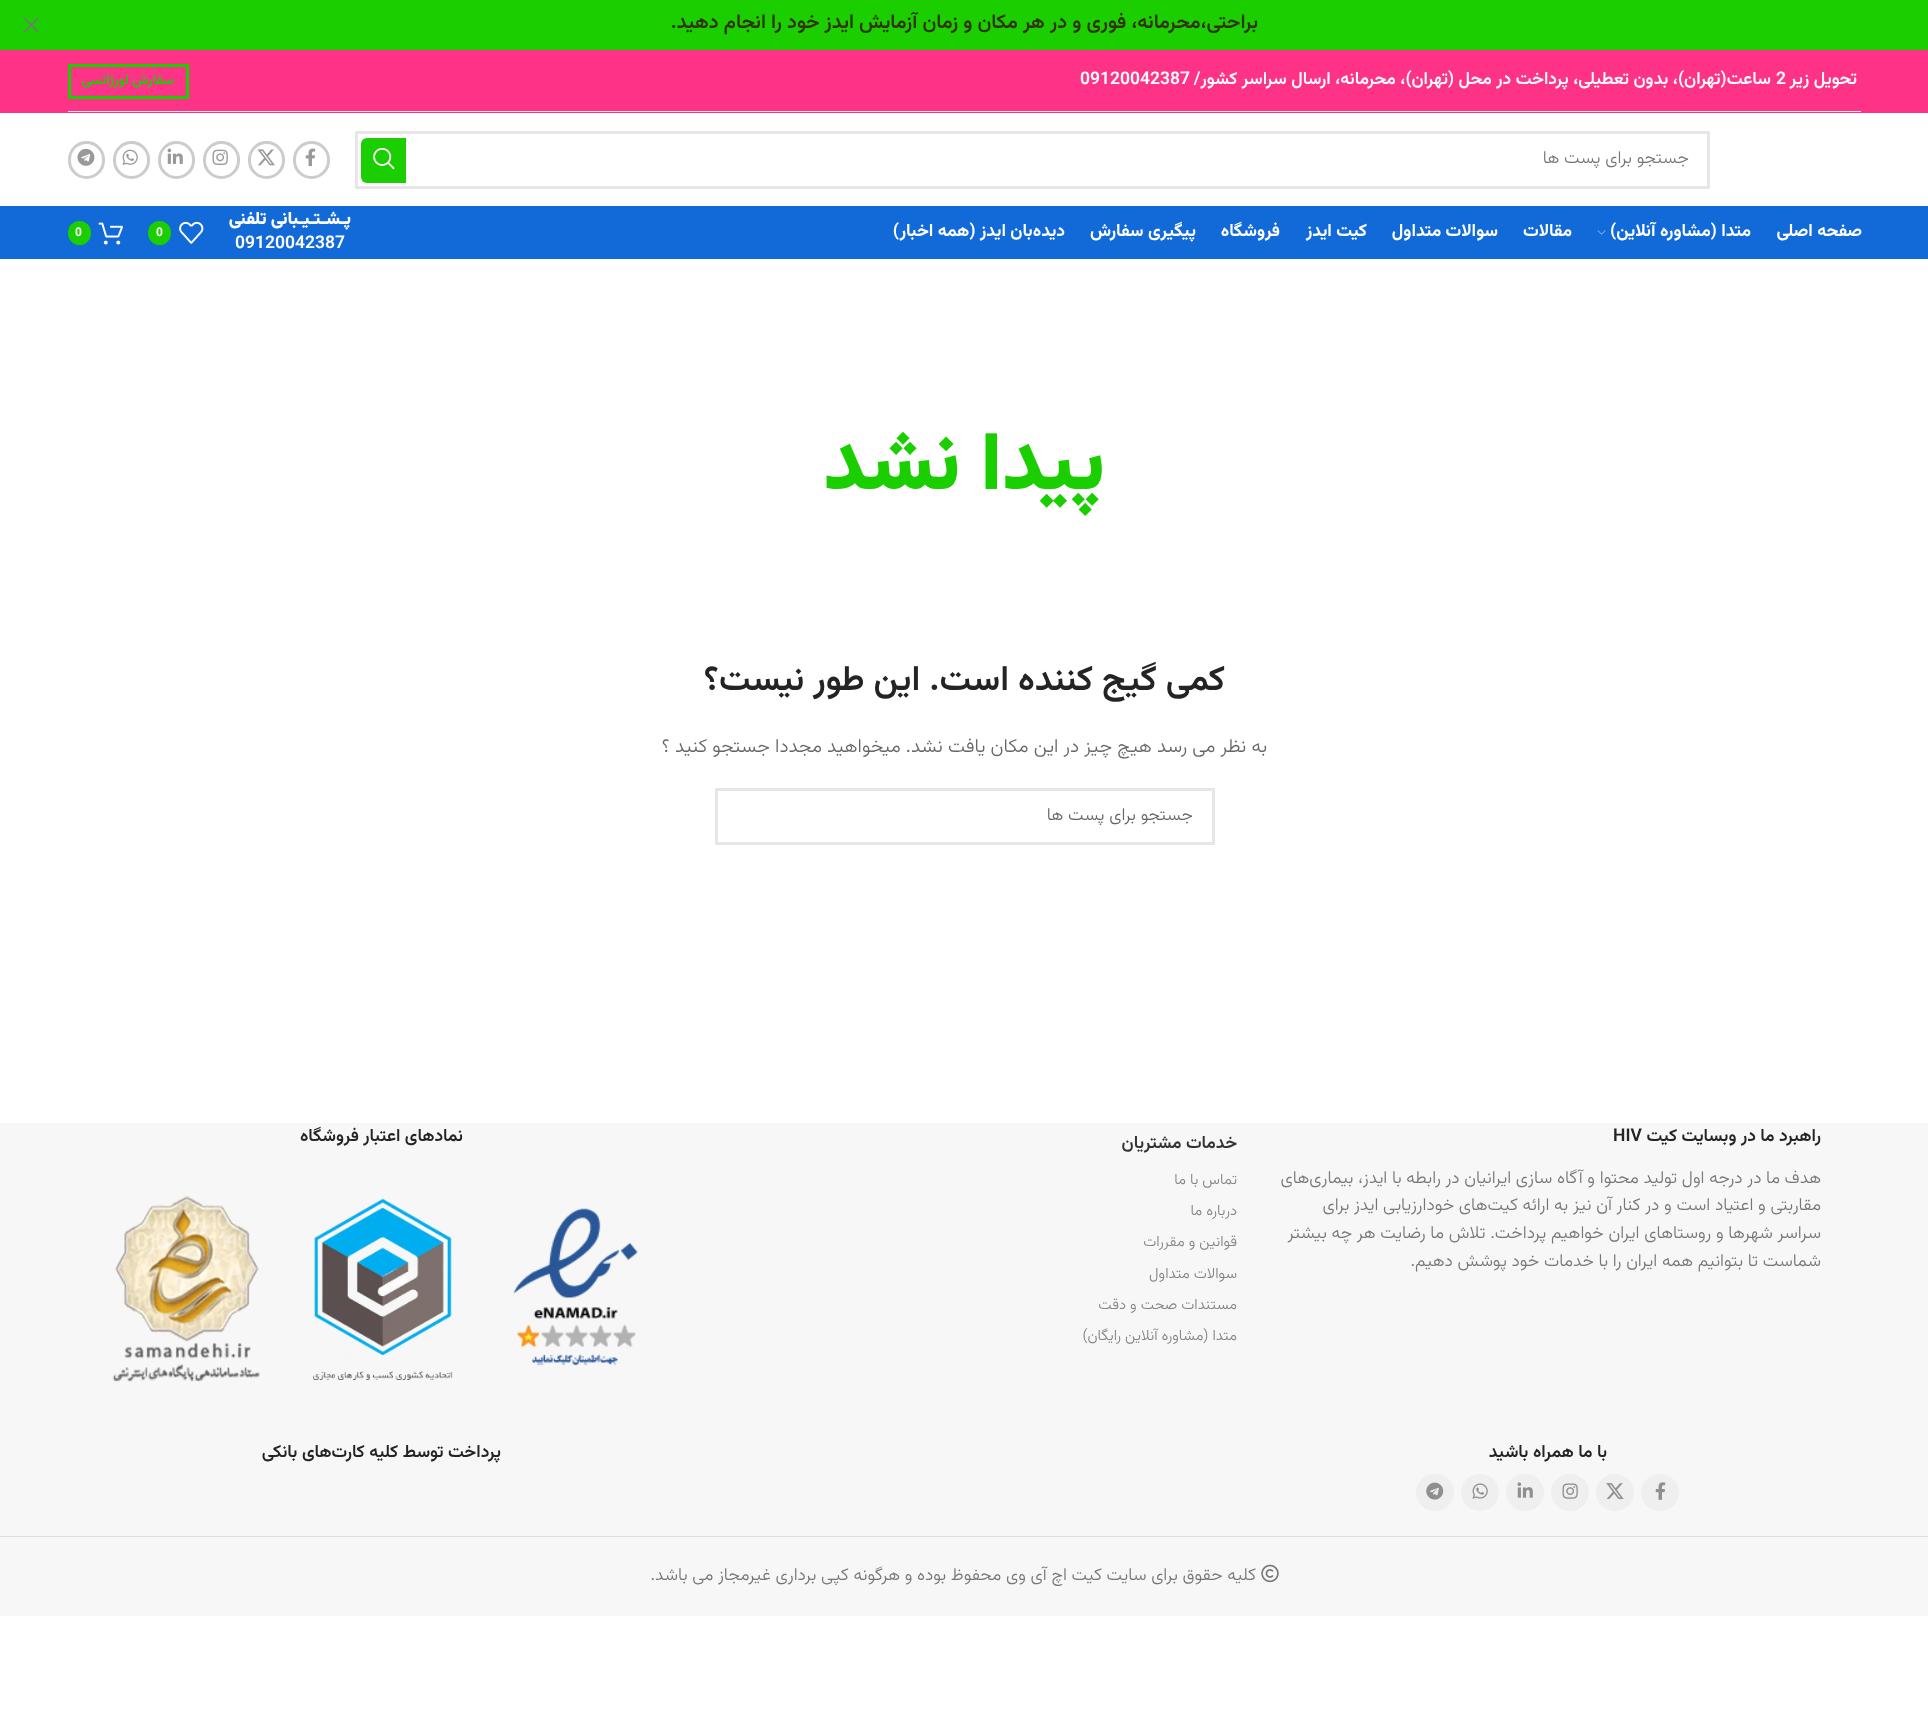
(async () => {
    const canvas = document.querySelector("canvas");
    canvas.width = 1928;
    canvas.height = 1727;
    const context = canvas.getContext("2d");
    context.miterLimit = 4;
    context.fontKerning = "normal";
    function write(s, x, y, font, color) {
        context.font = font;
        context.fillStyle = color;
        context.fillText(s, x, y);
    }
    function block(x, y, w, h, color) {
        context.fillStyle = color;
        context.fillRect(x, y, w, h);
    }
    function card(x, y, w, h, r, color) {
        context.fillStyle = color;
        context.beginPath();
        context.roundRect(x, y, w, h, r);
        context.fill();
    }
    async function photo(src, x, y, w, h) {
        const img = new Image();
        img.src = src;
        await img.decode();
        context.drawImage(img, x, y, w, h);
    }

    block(0, 0, 1928, 1727, "rgb(255, 255, 255)");
    block(0, 0, 1928, 50, "rgb(27, 206, 0)");
    context.direction = "rtl";
    write("براحتی،محرمانه، فوری و در هر مکان و زمان آزمایش ایدز خود را انجام دهید.", 1258, 28, "600 20px Vazirmatn", "rgb(51, 51, 0)");
    await photo("media/1.png", 23, 17, 16, 16);
    context.beginPath();
    context.moveTo(24.5, 31.5);
    context.bezierCurveTo(21, 28, 21, 22, 24.5, 18.5);
    context.strokeStyle = "rgb(27, 206, 0)";
    context.lineWidth = 1.2;
    context.stroke();
    block(0, 50, 1928, 63, "rgb(254, 51, 136)");
    block(68, 111, 1793, 1, "rgb(230, 230, 230)");
    write("تحویل زیر", 1857, 84, "600 17.5px Vazirmatn", "rgb(255, 255, 255)");
    context.direction = "ltr";
    write("2", 1776, 84, "600 17.5px Vazirmatn", "rgb(255, 255, 255)");
    context.direction = "rtl";
    write("ساعت(تهران)، بدون تعطیلی، پرداخت در محل (تهران)، محرمانه، ارسال سراسر کشور/", 1771, 84, "600 17.5px Vazirmatn", "rgb(255, 255, 255)");
    context.direction = "ltr";
    write("09120042387", 1080, 84, "600 17.5px Vazirmatn", "rgb(255, 255, 255)");
    context.lineWidth = 3;
    context.strokeRect(69.5, 65.5, 118, 32);
    context.direction = "rtl";
    write("سفارش اورژانسی", 174, 84, "600 13.75px Vazirmatn", "rgb(27, 206, 0)");
    context.strokeStyle = "rgb(230, 230, 230)";
    context.strokeRect(356.5, 132.5, 1352, 55);
    write("جستجو برای پست ها", 1689, 163, "300 17.5px Vazirmatn", "rgb(118, 118, 118)");
    context.fillStyle = "rgb(27, 206, 0)";
    context.beginPath();
    context.roundRect(361, 138, 45, 45, [6, 0, 0, 6]);
    context.fill();
    await photo("media/2.png", 373, 147, 22, 23);
    context.beginPath();
    context.roundRect(294.5, 142.5, 34, 35, 17);
    context.strokeStyle = "rgb(204, 204, 204)";
    context.stroke();
    await photo("media/3.png", 305, 148, 11, 19);
    context.beginPath();
    context.roundRect(249.5, 142.5, 34, 35, 17);
    context.stroke();
    await photo("media/4.png", 257, 149, 18, 17);
    context.beginPath();
    context.roundRect(204.5, 142.5, 34, 35, 17);
    context.stroke();
    await photo("media/5.png", 212, 149, 16, 16);
    context.beginPath();
    context.roundRect(159.5, 142.5, 34, 35, 17);
    context.stroke();
    await photo("media/6.png", 167, 148, 16, 16);
    context.beginPath();
    context.roundRect(114.5, 142.5, 34, 35, 17);
    context.stroke();
    await photo("media/7.png", 122, 149, 16, 16);
    context.beginPath();
    context.roundRect(69.5, 142.5, 34, 35, 17);
    context.stroke();
    await photo("media/8.png", 77, 148, 18, 18);
    block(0, 206, 1928, 53, "rgb(18, 105, 216)");
    write("صفحه اصلی", 1862, 236, "bold 17.5px Vazirmatn", "rgb(255, 255, 255)");
    write("متدا (مشاوره آنلاین)", 1751, 236, "bold 17.5px Vazirmatn", "rgb(255, 255, 255)");
    await photo("media/9.png", 1597, 230, 9, 5);
    write("مقالات", 1572, 236, "bold 17.5px Vazirmatn", "rgb(255, 255, 255)");
    write("سوالات متداول", 1498, 236, "bold 17.5px Vazirmatn", "rgb(255, 255, 255)");
    write("کیت ایدز", 1367, 236, "bold 17.5px Vazirmatn", "rgb(255, 255, 255)");
    write("فروشگاه", 1280, 236, "bold 17.5px Vazirmatn", "rgb(255, 255, 255)");
    write("پیگیری سفارش", 1196, 236, "bold 17.5px Vazirmatn", "rgb(255, 255, 255)");
    write("دیده‌بان ایدز (همه اخبار)", 1065, 236, "bold 17.5px Vazirmatn", "rgb(255, 255, 255)");
    write("پـشـتـیـبانی تلفنی", 351, 224, "900 17.5px Vazirmatn", "rgb(255, 255, 255)");
    context.direction = "ltr";
    write("09120042387", 235, 248, "600 17.5px Vazirmatn", "rgb(255, 255, 255)");
    await photo("media/10.png", 179, 221, 25, 23);
    card(148, 221, 23, 24, 11.5, "rgb(27, 206, 0)");
    write("0", 156, 236, "bold 12px Vazirmatn", "rgb(255, 255, 255)");
    await photo("media/11.png", 98, 222, 25, 23);
    card(68, 221, 23, 24, 11.5, "rgb(27, 206, 0)");
    write("0", 75, 236, "bold 12px Vazirmatn", "rgb(255, 255, 255)");
    context.direction = "rtl";
    write("پیدا نشد", 1105, 489, "900 81px Vazirmatn", "rgb(27, 206, 0)");
    write("کمی گیج کننده است. این طور نیست؟", 1225, 690, "600 35px Vazirmatn", "rgb(36, 36, 36)");
    write("به نظر می رسد هیچ چیز در این مکان یافت نشد. میخواهید مجددا جستجو کنید ؟", 1267, 752, "300 19.25px Vazirmatn", "rgb(102, 102, 102)");
    context.strokeStyle = "rgb(230, 230, 230)";
    context.strokeRect(716.5, 789.5, 497, 54);
    write("جستجو برای پست ها", 1193, 820, "300 17.5px Vazirmatn", "rgb(102, 102, 102)");
    block(0, 1123, 1928, 493, "rgb(247, 247, 247)");
    write("راهبرد ما در وبسایت کیت", 1821, 1141, "600 17.5px Vazirmatn", "rgb(36, 36, 36)");
    context.direction = "ltr";
    write("HIV", 1613, 1141, "600 17.5px Vazirmatn", "rgb(36, 36, 36)");
    context.direction = "rtl";
    write("هدف ما در درجه اول تولید محتوا و آگاه سازی ایرانیان در رابطه با ایدز، بیماری‌های", 1821, 1183, "300 17.5px Vazirmatn", "rgb(118, 118, 118)");
    write("مقاربتی و اعتیاد است و در کنار آن نیز به ارائه کیت‌های خودارزیابی ایدز برای", 1821, 1210, "300 17.5px Vazirmatn", "rgb(118, 118, 118)");
    write("سراسر شهرها و روستاهای ایران خواهیم پرداخت. تلاش ما رضایت هر چه بیشتر", 1821, 1238, "300 17.5px Vazirmatn", "rgb(118, 118, 118)");
    write("شماست تا بتوانیم همه ایران را با خدمات خود پوشش دهیم.", 1821, 1266, "300 17.5px Vazirmatn", "rgb(118, 118, 118)");
    write("خدمات مشتریان", 1237, 1148, "600 17.5px Vazirmatn", "rgb(51, 51, 51)");
    write("تماس با ما", 1237, 1184, "300 15px Vazirmatn", "rgb(131, 131, 131)");
    write("درباره ما", 1237, 1215, "300 15px Vazirmatn", "rgb(131, 131, 131)");
    write("قوانین و مقررات", 1237, 1246, "300 15px Vazirmatn", "rgb(131, 131, 131)");
    write("سوالات متداول", 1237, 1278, "300 15px Vazirmatn", "rgb(131, 131, 131)");
    write("مستندات صحت و دقت", 1237, 1309, "300 15px Vazirmatn", "rgb(131, 131, 131)");
    write("متدا (مشاوره آنلاین رایگان)", 1237, 1340, "300 15px Vazirmatn", "rgb(131, 131, 131)");
    write("نمادهای اعتبار فروشگاه", 463, 1141, "600 17.5px Vazirmatn", "rgb(36, 36, 36)");
    await photo("media/12.png", 513, 1208, 125, 158);
    await photo("media/13.png", 313, 1198, 140, 182);
    await photo("media/14.png", 112, 1196, 148, 186);
    write("با ما همراه باشید", 1607, 1457, "600 17.5px Vazirmatn", "rgb(36, 36, 36)");
    card(1641, 1474, 38, 37, 18.5, "rgb(239, 239, 239)");
    await photo("media/15.png", 1655, 1482, 11, 18);
    card(1596, 1474, 38, 37, 18.5, "rgb(239, 239, 239)");
    await photo("media/16.png", 1606, 1483, 18, 16);
    card(1551, 1474, 38, 37, 18.5, "rgb(239, 239, 239)");
    await photo("media/17.png", 1562, 1483, 16, 16);
    card(1506, 1474, 38, 37, 18.5, "rgb(239, 239, 239)");
    await photo("media/18.png", 1517, 1482, 16, 16);
    card(1461, 1474, 38, 37, 18.5, "rgb(239, 239, 239)");
    await photo("media/19.png", 1472, 1483, 16, 16);
    card(1416, 1474, 38, 37, 18.5, "rgb(239, 239, 239)");
    await photo("media/20.png", 1426, 1482, 18, 18);
    write("پرداخت توسط کلیه کارت‌های بانکی", 501, 1457, "600 17.5px Vazirmatn", "rgb(36, 36, 36)");
    block(0, 1536, 1928, 1, "rgb(221, 221, 221)");
    await photo("media/21.png", 1261, 1564, 18, 19);
    write("کلیه حقوق برای سایت کیت اچ آی وی محفوظ بوده و هرگونه کپی برداری غیرمجاز می باشد.", 1256, 1580, "300 17.5px Vazirmatn", "rgb(118, 118, 118)");
})();
